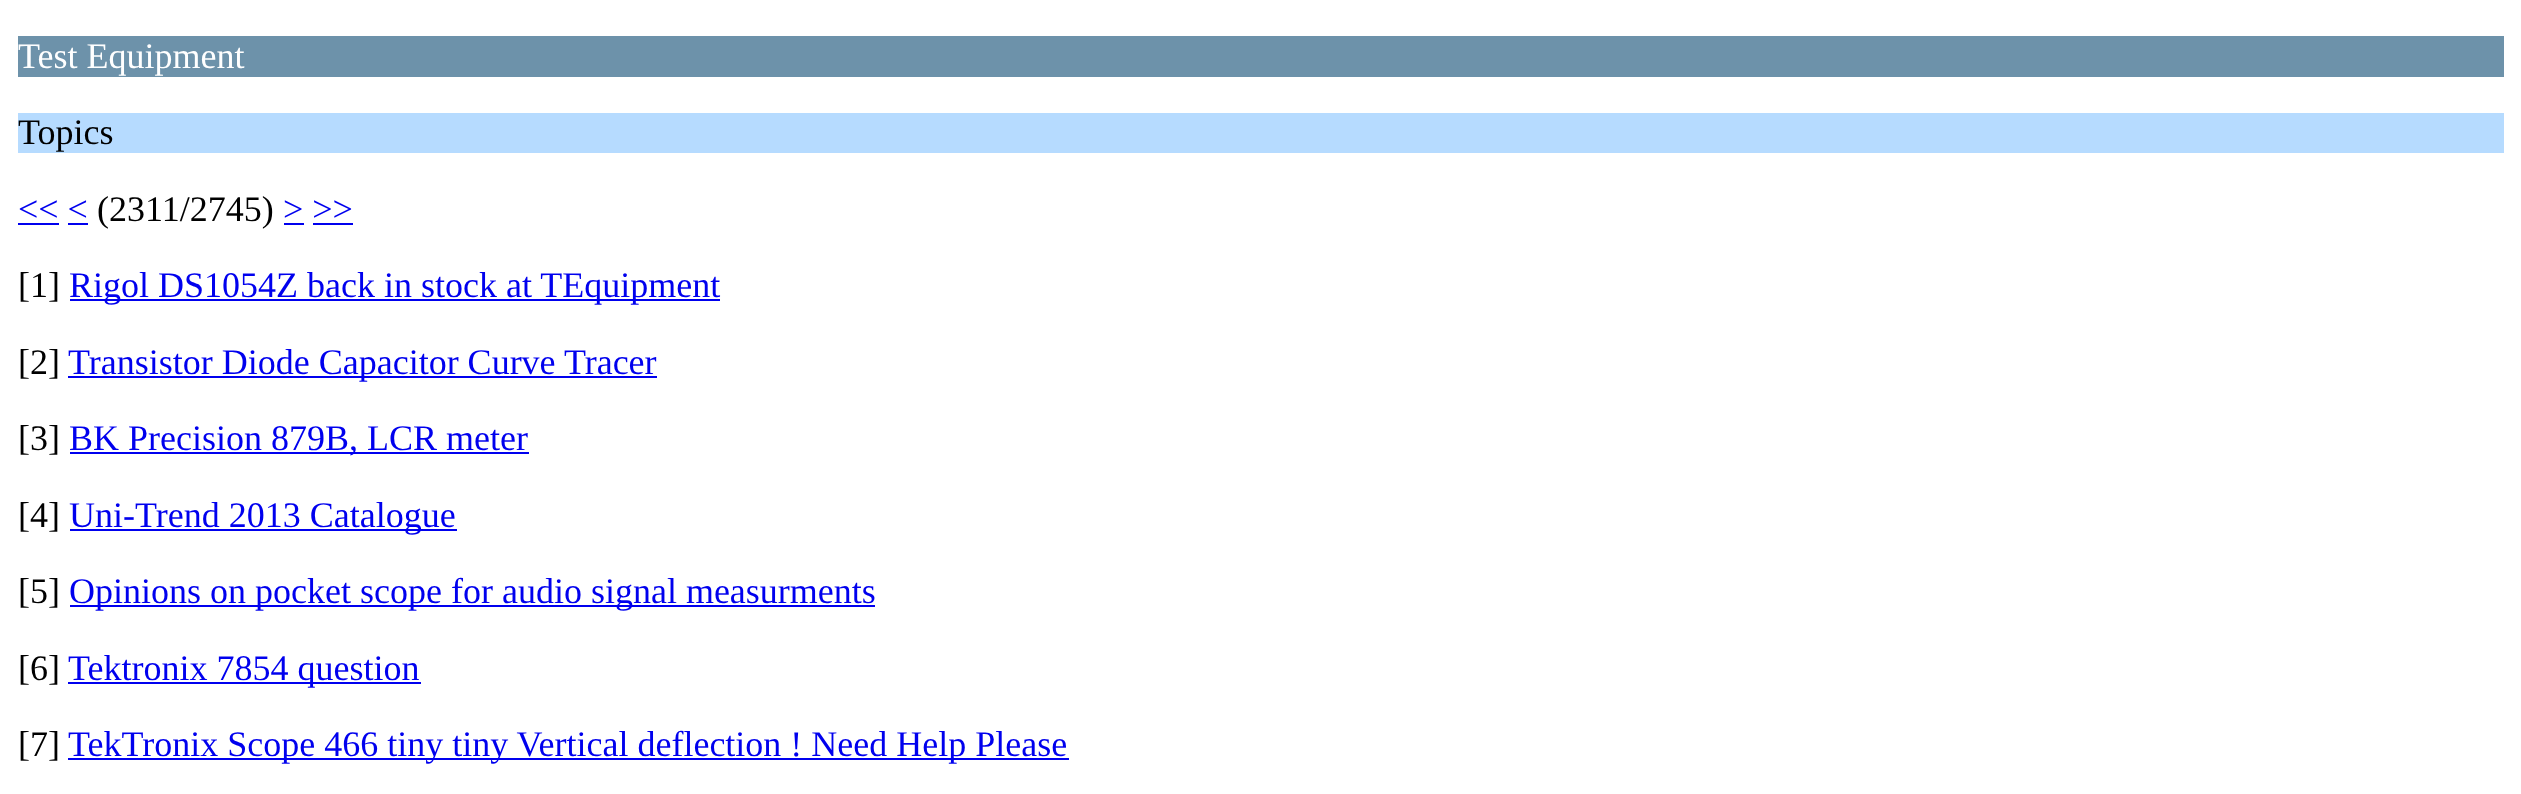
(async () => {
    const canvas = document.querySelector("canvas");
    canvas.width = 2521;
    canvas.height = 794;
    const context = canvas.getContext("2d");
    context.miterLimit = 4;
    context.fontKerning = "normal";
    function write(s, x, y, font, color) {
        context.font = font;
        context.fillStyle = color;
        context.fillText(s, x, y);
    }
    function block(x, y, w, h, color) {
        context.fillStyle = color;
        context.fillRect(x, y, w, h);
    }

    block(0, 0, 2521, 794, "rgb(255, 255, 255)");
    block(18, 36, 2486, 41, "rgb(109, 146, 170)");
    write("Test Equipment", 18, 68, "36px Liberation Serif", "rgb(255, 255, 255)");
    block(18, 113, 2486, 40, "rgb(182, 219, 255)");
    write("Topics", 18, 144, "36px Liberation Serif", "rgb(0, 0, 0)");
    write("<< <", 18, 221, "36px Liberation Serif", "rgb(0, 0, 238)");
    block(18, 223, 41, 2, "rgb(0, 0, 238)");
    write("(2311/2745)", 97, 221, "36px Liberation Serif", "rgb(0, 0, 0)");
    write("> >>", 283, 221, "36px Liberation Serif", "rgb(0, 0, 238)");
    block(284, 223, 20, 2, "rgb(0, 0, 238)");
    block(68, 223, 20, 2, "rgb(0, 0, 238)");
    block(313, 223, 40, 2, "rgb(0, 0, 238)");
    write("[1]", 18, 297, "36px Liberation Serif", "rgb(0, 0, 0)");
    block(70, 299, 650, 2, "rgb(0, 0, 238)");
    write("Rigol DS1054Z back in stock at TEquipment", 69, 297, "36px Liberation Serif", "rgb(0, 0, 238)");
    write("[2]", 18, 374, "36px Liberation Serif", "rgb(0, 0, 0)");
    block(68, 376, 589, 2, "rgb(0, 0, 238)");
    write("Transistor Diode Capacitor Curve Tracer", 68, 374, "36px Liberation Serif", "rgb(0, 0, 238)");
    write("[3]", 18, 450, "36px Liberation Serif", "rgb(0, 0, 0)");
    block(70, 452, 459, 2, "rgb(0, 0, 238)");
    write("BK Precision 879B, LCR meter", 69, 450, "36px Liberation Serif", "rgb(0, 0, 238)");
    write("[4]", 18, 527, "36px Liberation Serif", "rgb(0, 0, 0)");
    block(70, 529, 387, 2, "rgb(0, 0, 238)");
    write("Uni-Trend 2013 Catalogue", 69, 527, "36px Liberation Serif", "rgb(0, 0, 238)");
    write("[5]", 18, 603, "36px Liberation Serif", "rgb(0, 0, 0)");
    block(70, 605, 805, 2, "rgb(0, 0, 238)");
    write("Opinions on pocket scope for audio signal measurments", 69, 603, "36px Liberation Serif", "rgb(0, 0, 238)");
    write("[6]", 18, 680, "36px Liberation Serif", "rgb(0, 0, 0)");
    block(68, 682, 353, 2, "rgb(0, 0, 238)");
    write("Tektronix 7854 question", 68, 680, "36px Liberation Serif", "rgb(0, 0, 238)");
    write("[7]", 18, 756, "36px Liberation Serif", "rgb(0, 0, 0)");
    block(68, 758, 1001, 2, "rgb(0, 0, 238)");
    write("TekTronix Scope 466 tiny tiny Vertical deflection ! Need Help Please", 68, 756, "36px Liberation Serif", "rgb(0, 0, 238)");
})();
